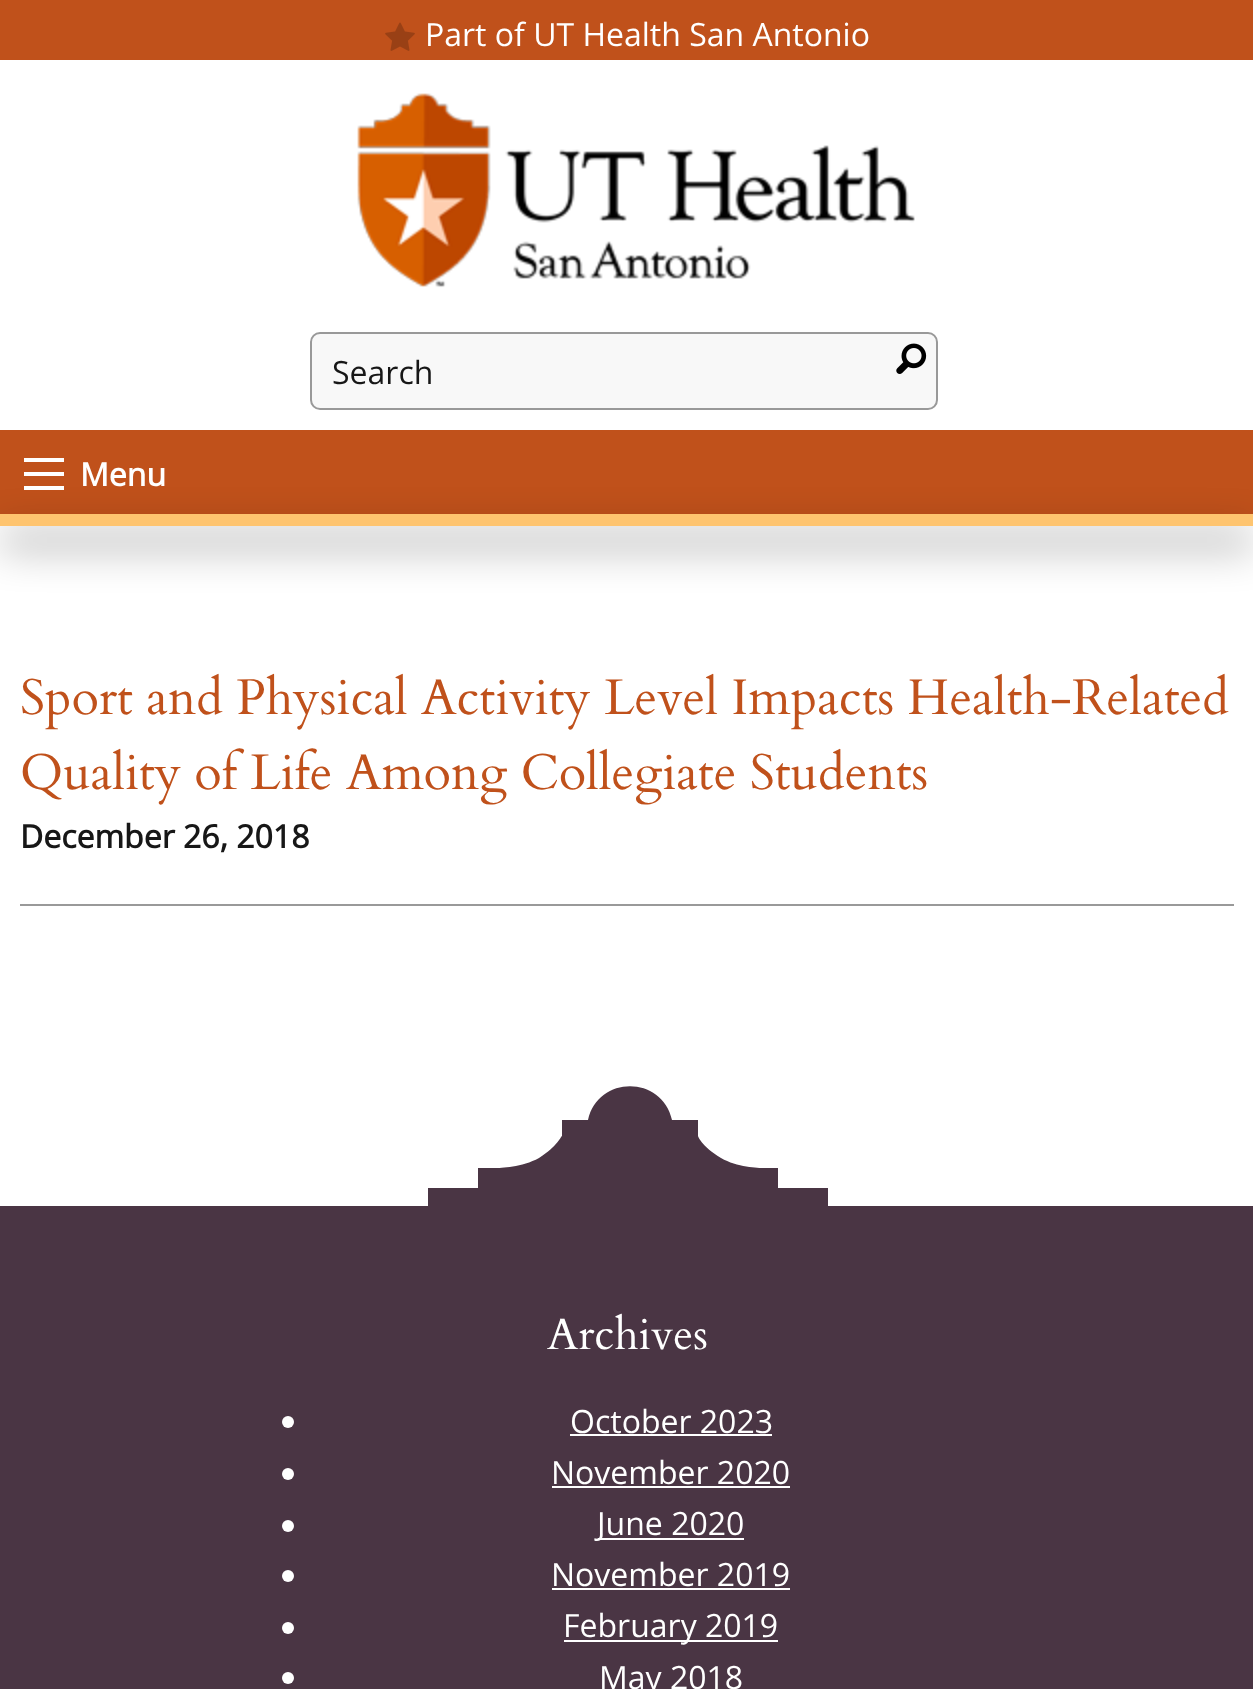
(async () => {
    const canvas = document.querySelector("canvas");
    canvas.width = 1253;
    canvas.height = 1689;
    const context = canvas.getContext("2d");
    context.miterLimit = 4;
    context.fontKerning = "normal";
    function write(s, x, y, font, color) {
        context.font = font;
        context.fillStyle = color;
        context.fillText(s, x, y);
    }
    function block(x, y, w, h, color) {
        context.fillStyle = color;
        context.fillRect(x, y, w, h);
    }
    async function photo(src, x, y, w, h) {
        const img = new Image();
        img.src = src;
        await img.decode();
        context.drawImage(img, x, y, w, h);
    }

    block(0, 0, 1253, 1689, "rgb(255, 255, 255)");
    block(0, 0, 1253, 60, "rgb(192, 81, 27)");
    await photo("media/1.png", 385, 22, 30, 29);
    write("Part of UT Health San Antonio", 425, 46, "32px Open Sans", "rgb(255, 255, 255)");
    await photo("media/2.png", 357, 93, 558, 195);
    context.fillStyle = "rgb(248, 248, 248)";
    context.beginPath();
    context.roundRect(311, 333, 626, 76, 9);
    context.fill();
    context.strokeStyle = "rgb(153, 153, 153)";
    context.lineWidth = 2;
    context.stroke();
    write("Search", 332, 384, "32px Open Sans", "rgb(23, 23, 23)");
    await photo("media/3.png", 896, 343, 31, 31);
    block(0, 430, 1253, 84, "rgb(192, 81, 27)");
    block(24, 486, 40, 4, "rgb(255, 255, 255)");
    block(24, 472, 40, 4, "rgb(255, 255, 255)");
    block(24, 458, 40, 4, "rgb(255, 255, 255)");
    write("Menu", 80, 486, "bold 32px Open Sans", "rgb(255, 255, 255)");
    context.fillStyle = "rgba(0, 0, 0, 0.5)";
    context.filter = "blur(20px)";
    context.beginPath();
    context.rect(0, 534, 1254, 12);
    context.fill();
    context.filter = "none";
    block(0, 514, 1253, 12, "rgb(254, 196, 111)");
    write("Sport and Physical Activity Level Impacts Health-Related", 20, 714, "50px Cardo", "rgb(192, 81, 27)");
    write("Quality of Life Among Collegiate Students", 20, 789, "50px Cardo", "rgb(192, 81, 27)");
    write("December 26, 2018", 20, 848, "bold 32px Open Sans", "rgb(23, 23, 23)");
    block(20, 904, 1214, 2, "rgb(153, 153, 153)");
    block(0, 1206, 1253, 483, "rgb(74, 53, 68)");
    context.save();
    context.beginPath();
    context.rect(428, 1086, 400, 162);
    context.clip();
    context.beginPath();
    context.moveTo(428, 1249);
    context.lineTo(828, 1249);
    context.lineTo(828, 1188);
    context.lineTo(778, 1188);
    context.lineTo(778, 1168);
    context.lineTo(766, 1168);
    context.bezierCurveTo(766, 1168, 740, 1169, 721, 1158);
    context.bezierCurveTo(701, 1146, 698, 1136, 698, 1136);
    context.lineTo(698, 1120);
    context.lineTo(672, 1120);
    context.bezierCurveTo(662, 1075, 598, 1075, 588, 1120);
    context.lineTo(562, 1120);
    context.lineTo(562, 1136);
    context.bezierCurveTo(561, 1136, 558, 1146, 539, 1158);
    context.bezierCurveTo(519, 1169, 493, 1168, 493, 1168);
    context.lineTo(478, 1168);
    context.lineTo(478, 1188);
    context.lineTo(428, 1188);
    context.lineTo(428, 1249);
    context.fill();
    context.restore();
    write("Archives", 547, 1349, "44px Cardo", "rgb(255, 255, 255)");
    context.beginPath();
    context.arc(288, 1422, 6, 0, Math.PI * 2);
    context.fill();
    write("October 2023", 570, 1433, "32px Open Sans", "rgb(255, 255, 255)");
    block(570, 1434, 202, 2, "rgb(255, 255, 255)");
    context.beginPath();
    context.arc(288, 1474, 6, 0, Math.PI * 2);
    context.fill();
    write("November 2020", 551, 1484, "32px Open Sans", "rgb(255, 255, 255)");
    block(552, 1486, 238, 2, "rgb(255, 255, 255)");
    context.beginPath();
    context.arc(288, 1526, 6, 0, Math.PI * 2);
    context.fill();
    block(598, 1538, 146, 2, "rgb(255, 255, 255)");
    write("June 2020", 597, 1535, "32px Open Sans", "rgb(255, 255, 255)");
    context.beginPath();
    context.arc(288, 1576, 6, 0, Math.PI * 2);
    context.fill();
    write("November 2019", 551, 1586, "32px Open Sans", "rgb(255, 255, 255)");
    block(552, 1588, 238, 2, "rgb(255, 255, 255)");
    context.beginPath();
    context.arc(288, 1628, 6, 0, Math.PI * 2);
    context.fill();
    block(564, 1640, 214, 2, "rgb(255, 255, 255)");
    write("February 2019", 563, 1637, "32px Open Sans", "rgb(255, 255, 255)");
    context.beginPath();
    context.arc(288, 1678, 6, 0, Math.PI * 2);
    context.fill();
    write("May 2018", 599, 1689, "32px Open Sans", "rgb(255, 255, 255)");
})();
